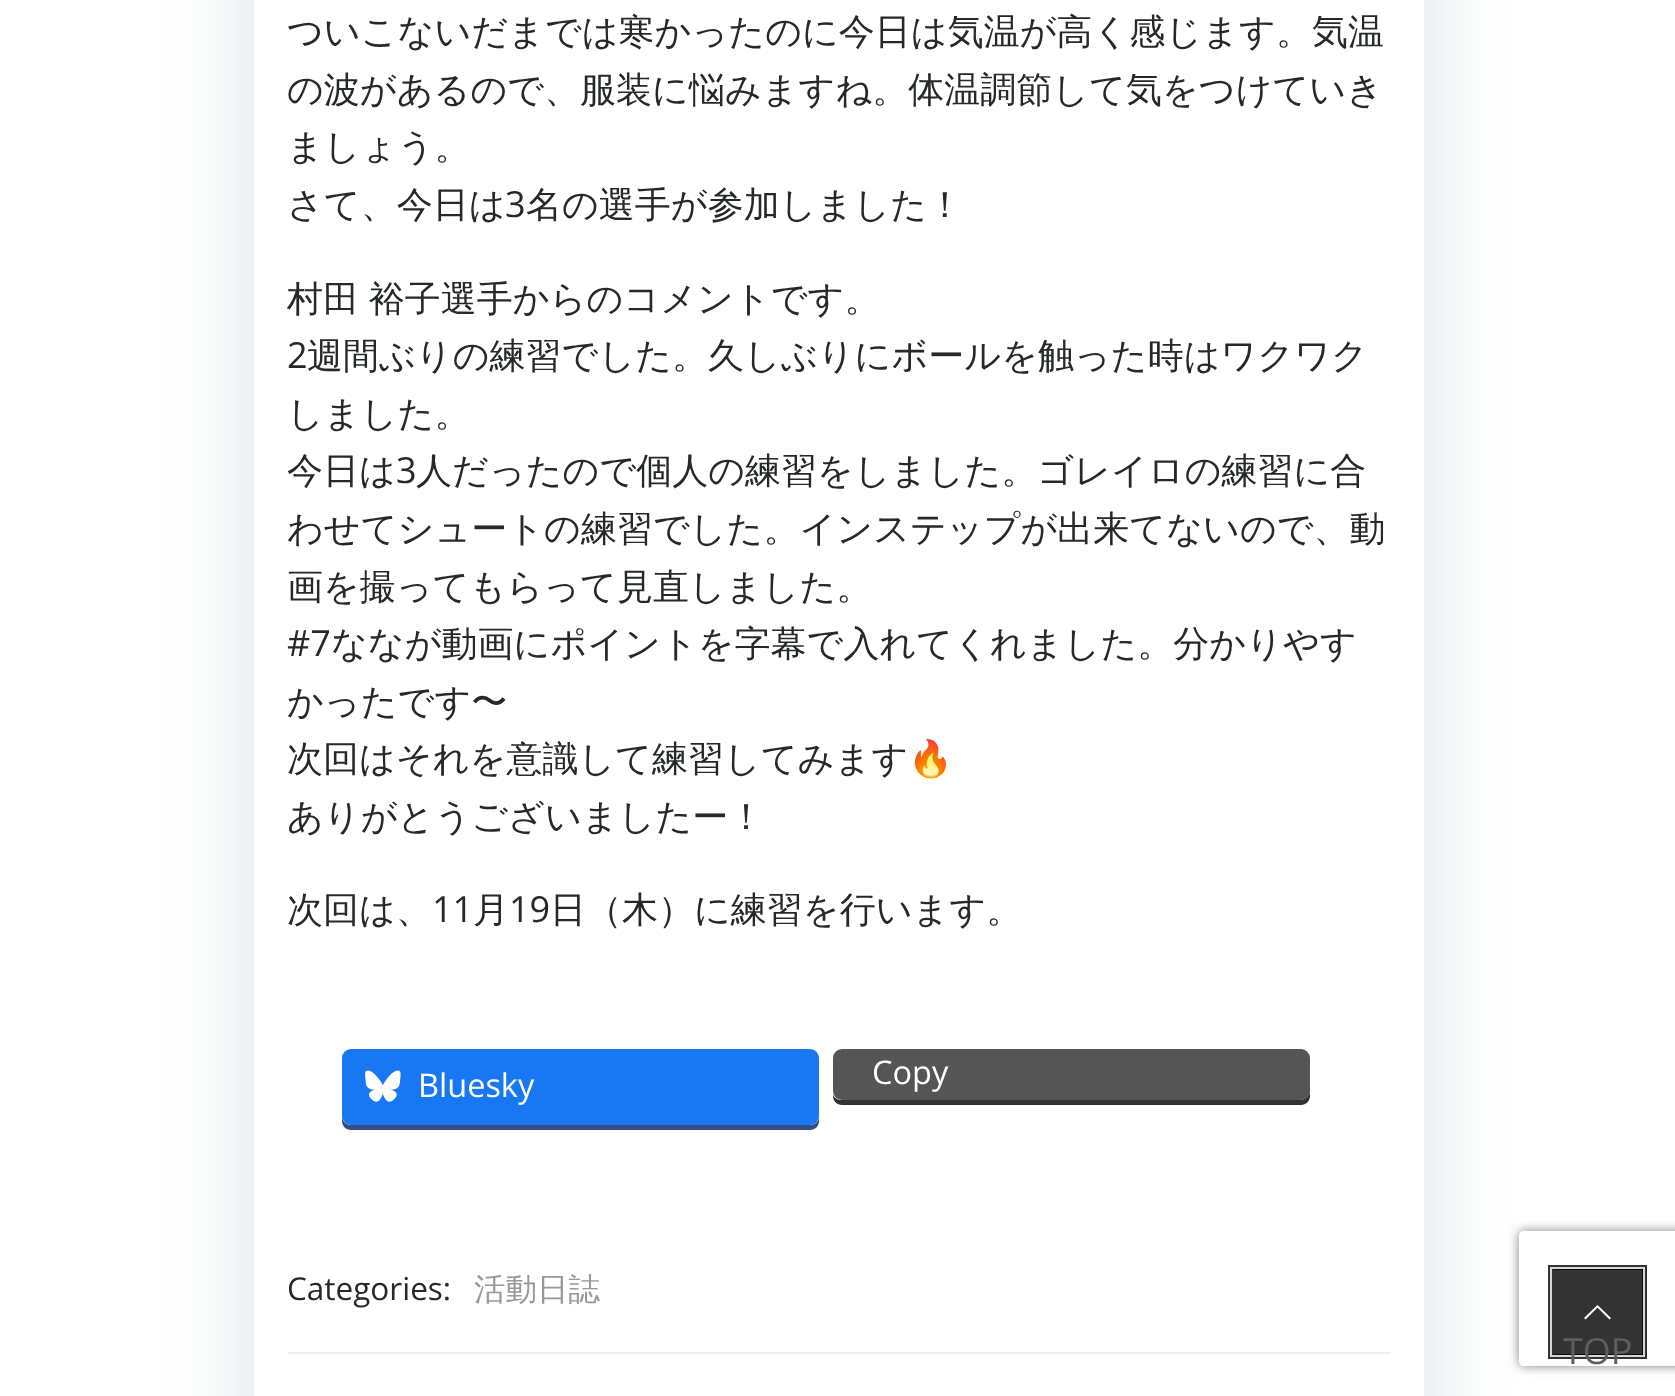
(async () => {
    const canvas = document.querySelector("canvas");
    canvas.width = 1675;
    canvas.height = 1396;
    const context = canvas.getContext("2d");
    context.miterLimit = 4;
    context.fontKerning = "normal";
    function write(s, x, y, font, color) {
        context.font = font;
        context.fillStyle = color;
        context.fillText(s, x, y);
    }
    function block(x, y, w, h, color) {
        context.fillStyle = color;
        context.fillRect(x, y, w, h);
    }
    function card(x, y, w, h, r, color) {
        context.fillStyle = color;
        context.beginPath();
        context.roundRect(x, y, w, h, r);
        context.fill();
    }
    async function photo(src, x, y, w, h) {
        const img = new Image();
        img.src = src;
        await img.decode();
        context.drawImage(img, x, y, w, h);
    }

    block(0, 0, 1675, 1396, "rgb(255, 255, 255)");
    context.fillStyle = "rgba(1, 51, 74, 0.15)";
    context.filter = "blur(45px)";
    context.beginPath();
    context.roundRect(254, -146, 1170, 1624, 11);
    context.fill();
    context.filter = "none";
    block(254, 0, 1170, 1396, "rgb(255, 255, 255)");
    write("ついこないだまでは寒かったのに今日は気温が高く感じます。気温", 287, 44, "500 36px WenQuanYi Zen Hei", "rgb(37, 41, 42)");
    write("の波があるので、服装に悩みますね。体温調節して気をつけていき", 287, 102, "500 36px WenQuanYi Zen Hei", "rgb(37, 41, 42)");
    write("ましょう。", 287, 159, "500 36px WenQuanYi Zen Hei", "rgb(37, 41, 42)");
    write("さて、今日は", 287, 217, "500 36px WenQuanYi Zen Hei", "rgb(37, 41, 42)");
    write("3", 505, 217, "36px Open Sans", "rgb(37, 41, 42)");
    write("名の選手が参加しました！", 526, 217, "500 36px WenQuanYi Zen Hei", "rgb(37, 41, 42)");
    context.wordSpacing = "-1px";
    write("村田 裕子選手からのコメントです。", 287, 311, "500 36px WenQuanYi Zen Hei", "rgb(37, 41, 42)");
    context.wordSpacing = "0px";
    write("2", 287, 368, "36px Open Sans", "rgb(37, 41, 42)");
    write("週間ぶりの練習でした。久しぶりにボールを触った時はワクワク", 307, 368, "500 36px WenQuanYi Zen Hei", "rgb(37, 41, 42)");
    write("しました。", 287, 426, "500 36px WenQuanYi Zen Hei", "rgb(37, 41, 42)");
    write("今日は", 287, 483, "500 36px WenQuanYi Zen Hei", "rgb(37, 41, 42)");
    write("3", 396, 483, "36px Open Sans", "rgb(37, 41, 42)");
    write("人だったので個人の練習をしました。ゴレイロの練習に合", 416, 483, "500 36px WenQuanYi Zen Hei", "rgb(37, 41, 42)");
    write("わせてシュートの練習でした。インステップが出来てないので、動", 287, 541, "500 36px WenQuanYi Zen Hei", "rgb(37, 41, 42)");
    write("画を撮ってもらって見直しました。", 287, 599, "500 36px WenQuanYi Zen Hei", "rgb(37, 41, 42)");
    write("#7", 287, 656, "36px Open Sans", "rgb(37, 41, 42)");
    write("ななが動画にポイントを字幕で入れてくれました。分かりやす", 331, 656, "500 36px WenQuanYi Zen Hei", "rgb(37, 41, 42)");
    write("かったです〜", 287, 714, "500 36px WenQuanYi Zen Hei", "rgb(37, 41, 42)");
    write("次回はそれを意識して練習してみます", 287, 771, "500 36px WenQuanYi Zen Hei", "rgb(37, 41, 42)");
    write("🔥", 908, 771, "36px Noto Color Emoji", "rgb(37, 41, 42)");
    write("ありがとうございましたー！", 287, 829, "500 36px WenQuanYi Zen Hei", "rgb(37, 41, 42)");
    write("次回は、", 287, 922, "500 36px WenQuanYi Zen Hei", "rgb(37, 41, 42)");
    write("11", 432, 922, "36px Open Sans", "rgb(37, 41, 42)");
    write("月", 473, 922, "500 36px WenQuanYi Zen Hei", "rgb(37, 41, 42)");
    write("19", 509, 922, "36px Open Sans", "rgb(37, 41, 42)");
    write("日（木）に練習を行います。", 550, 922, "500 36px WenQuanYi Zen Hei", "rgb(37, 41, 42)");
    context.fillStyle = "rgb(52, 78, 132)";
    context.beginPath();
    context.moveTo(342, 1116);
    context.lineTo(342, 1121);
    context.bezierCurveTo(342, 1126, 346, 1130, 351, 1130);
    context.lineTo(810, 1130);
    context.bezierCurveTo(815, 1130, 819, 1126, 819, 1121);
    context.lineTo(819, 1116);
    context.bezierCurveTo(819, 1121, 815, 1125, 810, 1125);
    context.lineTo(351, 1125);
    context.bezierCurveTo(346, 1125, 342, 1121, 342, 1116);
    context.closePath();
    context.fill();
    card(342, 1049, 477, 76, 9, "rgb(24, 119, 242)");
    await photo("media/1.png", 365, 1070, 36, 32);
    write("Bluesky", 418, 1097, "32.5px Open Sans", "rgb(255, 255, 255)");
    context.fillStyle = "rgb(51, 51, 51)";
    context.beginPath();
    context.moveTo(833, 1094);
    context.lineTo(833, 1096);
    context.bezierCurveTo(833, 1101, 837, 1105, 842, 1105);
    context.lineTo(1301, 1105);
    context.bezierCurveTo(1306, 1105, 1310, 1101, 1310, 1096);
    context.lineTo(1310, 1062);
    context.lineTo(1310, 1059);
    context.lineTo(1310, 1091);
    context.bezierCurveTo(1310, 1096, 1305, 1100, 1300, 1100);
    context.lineTo(842, 1100);
    context.bezierCurveTo(838, 1100, 834, 1098, 833, 1094);
    context.closePath();
    context.fill();
    card(833, 1049, 477, 51, 9, "rgb(85, 85, 85)");
    write("Copy", 872, 1084, "32.5px Open Sans", "rgb(255, 255, 255)");
    write("Categories:", 287, 1300, "31.5px Open Sans", "rgb(37, 41, 42)");
    write("活動日誌", 474, 1300, "500 31.5px WenQuanYi Zen Hei", "rgb(153, 153, 153)");
    block(288, 1352, 1103, 2, "rgb(238, 238, 238)");
    context.save();
    context.beginPath();
    context.moveTo(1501, 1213);
    context.lineTo(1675, 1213);
    context.lineTo(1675, 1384);
    context.lineTo(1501, 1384);
    context.closePath();
    context.moveTo(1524, 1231);
    context.lineTo(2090, 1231);
    context.bezierCurveTo(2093, 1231, 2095, 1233, 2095, 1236);
    context.lineTo(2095, 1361);
    context.bezierCurveTo(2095, 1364, 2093, 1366, 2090, 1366);
    context.lineTo(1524, 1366);
    context.bezierCurveTo(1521, 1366, 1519, 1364, 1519, 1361);
    context.lineTo(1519, 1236);
    context.bezierCurveTo(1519, 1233, 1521, 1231, 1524, 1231);
    context.closePath();
    context.clip("evenodd");
    context.fillStyle = "rgb(128, 128, 128)";
    context.filter = "blur(5.5px)";
    context.beginPath();
    context.roundRect(1519, 1231, 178, 135, 5);
    context.fill();
    context.filter = "none";
    context.restore();
    context.strokeStyle = "rgb(51, 51, 51)";
    context.lineWidth = 5;
    context.strokeRect(1550.5, 1267.5, 94, 89);
    context.strokeStyle = "rgb(214, 214, 214)";
    context.lineWidth = 2;
    context.strokeRect(1551, 1268, 93, 88);
    block(1553, 1269, 90, 86, "rgba(0, 0, 0, 0.8)");
    context.fillStyle = "rgb(255, 255, 255)";
    context.beginPath();
    context.moveTo(1611, 1318);
    context.lineTo(1609.5, 1319.5);
    context.lineTo(1597.5, 1307.5);
    context.lineTo(1585.5, 1319.5);
    context.lineTo(1584, 1318);
    context.lineTo(1597.5, 1305);
    context.closePath();
    context.fill();
    write("TOP", 1563, 1364, "36px Open Sans", "rgb(94, 94, 94)");
})();
